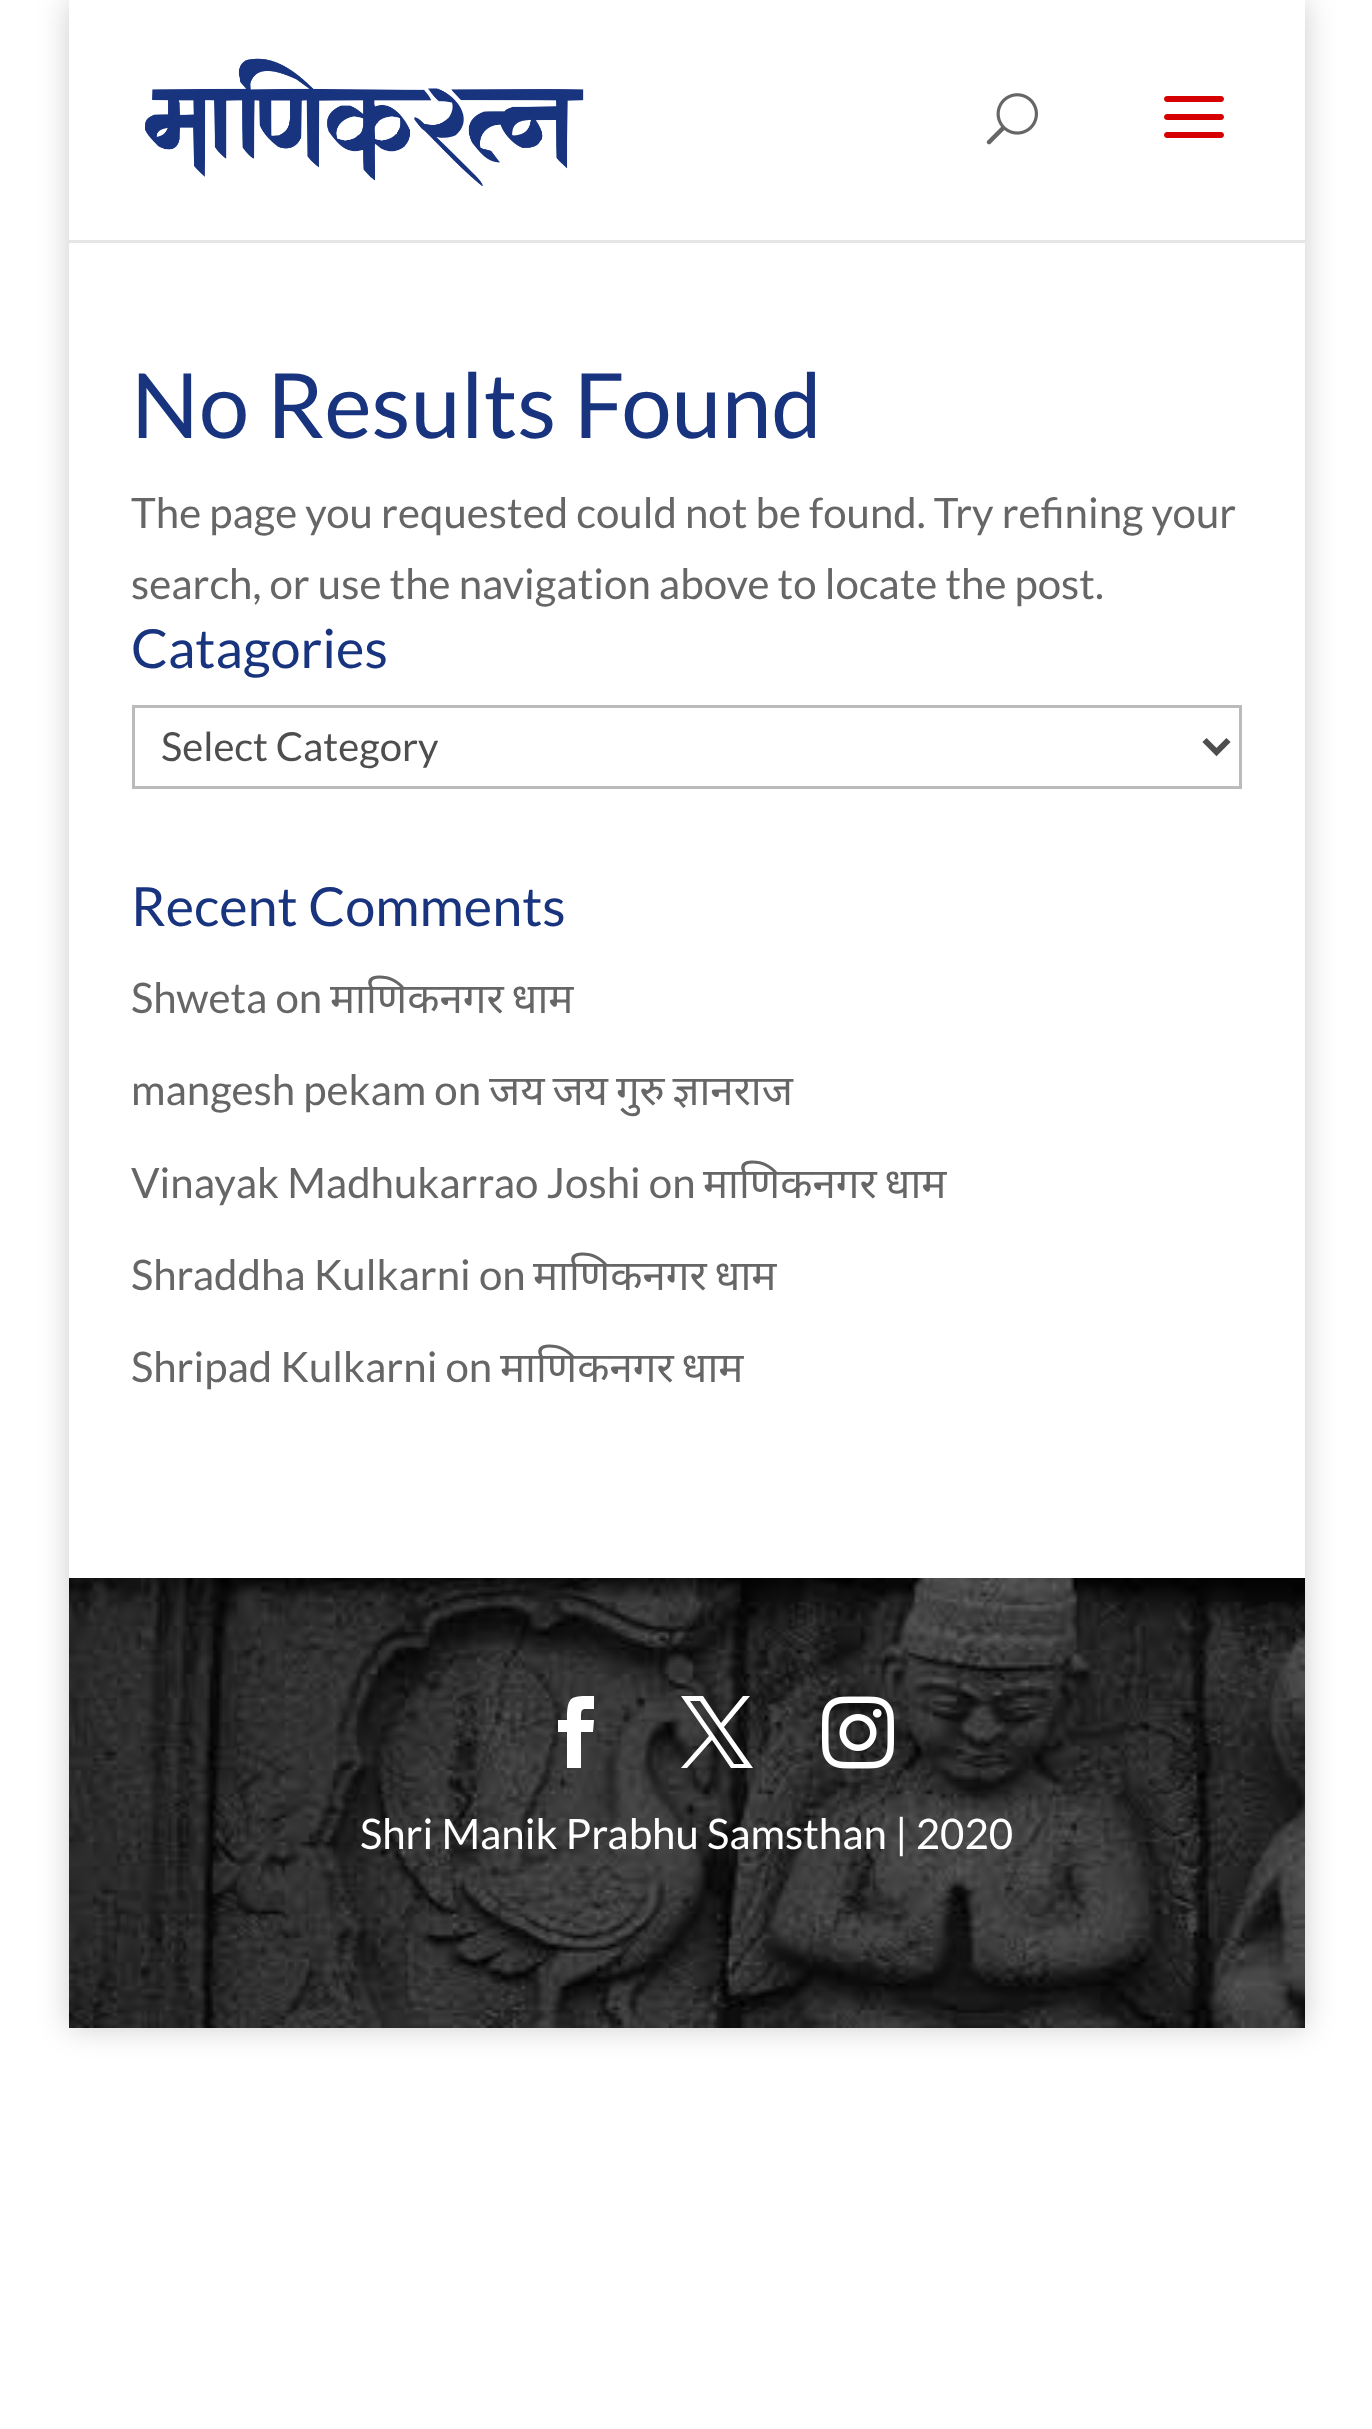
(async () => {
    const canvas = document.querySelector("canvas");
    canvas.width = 1372;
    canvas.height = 2429;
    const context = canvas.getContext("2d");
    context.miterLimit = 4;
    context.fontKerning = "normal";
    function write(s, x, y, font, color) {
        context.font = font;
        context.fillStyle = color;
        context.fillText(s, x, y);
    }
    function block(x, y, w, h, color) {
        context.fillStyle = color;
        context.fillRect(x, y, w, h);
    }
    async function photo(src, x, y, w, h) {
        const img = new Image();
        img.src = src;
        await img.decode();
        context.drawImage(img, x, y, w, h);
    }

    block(0, 0, 1372, 2429, "rgb(255, 255, 255)");
    context.save();
    context.beginPath();
    context.moveTo(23, 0);
    context.lineTo(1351, 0);
    context.lineTo(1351, 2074);
    context.lineTo(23, 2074);
    context.closePath();
    context.moveTo(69, 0);
    context.lineTo(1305, 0);
    context.lineTo(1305, 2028);
    context.lineTo(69, 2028);
    context.closePath();
    context.clip("evenodd");
    context.fillStyle = "rgba(0, 0, 0, 0.2)";
    context.filter = "blur(15px)";
    context.beginPath();
    context.rect(69, 0, 1236, 2028);
    context.fill();
    context.filter = "none";
    context.restore();
    block(69, 240, 1236, 3, "rgb(230, 230, 230)");
    await photo("media/1.png", 145, 58, 439, 128);
    await photo("media/2.png", 986, 93, 52, 52);
    await photo("media/3.png", 1164, 96, 60, 42);
    write("No Results Found", 131, 438, "90px Lato", "rgb(25, 52, 127)");
    write("The page you requested could not be found. Try refining your", 131, 528, "42px Lato", "rgb(102, 102, 102)");
    write("search, or use the navigation above to locate the post.", 131, 599, "42px Lato", "rgb(102, 102, 102)");
    write("Catagories", 131, 668, "54px Lato", "rgb(25, 52, 127)");
    context.strokeStyle = "rgb(187, 187, 187)";
    context.lineWidth = 3;
    context.strokeRect(133.5, 706.5, 1107, 81);
    context.beginPath();
    context.moveTo(1204.5, 740);
    context.lineTo(1216.5, 752);
    context.lineTo(1228.5, 740);
    context.strokeStyle = "rgb(78, 78, 78)";
    context.lineWidth = 6;
    context.stroke();
    write("Select Category", 161, 761, "40px Lato", "rgb(78, 78, 78)");
    write("Recent Comments", 131, 926, "54px Lato", "rgb(25, 52, 127)");
    write("Shweta on", 131, 1013, "42px Lato", "rgb(102, 102, 102)");
    context.wordSpacing = "-3px";
    write("माणिकनगर धाम", 330, 1013, "42px Noto Sans", "rgb(102, 102, 102)");
    context.wordSpacing = "0px";
    write("mangesh pekam on", 131, 1105, "42px Lato", "rgb(102, 102, 102)");
    context.wordSpacing = "-3px";
    write("जय जय गुरु ज्ञानराज", 489, 1105, "42px Noto Sans", "rgb(102, 102, 102)");
    context.wordSpacing = "0px";
    write("Vinayak Madhukarrao Joshi on", 131, 1198, "42px Lato", "rgb(102, 102, 102)");
    context.wordSpacing = "-3px";
    write("माणिकनगर धाम", 703, 1198, "42px Noto Sans", "rgb(102, 102, 102)");
    context.wordSpacing = "0px";
    write("Shraddha Kulkarni on", 131, 1290, "42px Lato", "rgb(102, 102, 102)");
    context.wordSpacing = "-3px";
    write("माणिकनगर धाम", 533, 1290, "42px Noto Sans", "rgb(102, 102, 102)");
    context.wordSpacing = "0px";
    write("Shripad Kulkarni on", 131, 1382, "42px Lato", "rgb(102, 102, 102)");
    context.wordSpacing = "-3px";
    write("माणिकनगर धाम", 500, 1382, "42px Noto Sans", "rgb(102, 102, 102)");
    await photo("media/4.png", 69, 1578, 1236, 450);
    context.fillStyle = "rgb(255, 255, 255)";
    context.beginPath();
    context.moveTo(567, 1768);
    context.lineTo(581, 1768);
    context.lineTo(581, 1732);
    context.lineTo(593, 1732);
    context.lineTo(594, 1720);
    context.lineTo(581, 1720);
    context.bezierCurveTo(581, 1707, 581, 1709, 594, 1709);
    context.lineTo(594, 1696);
    context.bezierCurveTo(571, 1696, 567, 1695, 567, 1720);
    context.lineTo(558, 1720);
    context.lineTo(558, 1732);
    context.lineTo(567, 1732);
    context.closePath();
    context.fill();
    context.beginPath();
    context.moveTo(681, 1696);
    context.lineTo(709, 1736);
    context.lineTo(681, 1768);
    context.lineTo(687, 1768);
    context.lineTo(712, 1740);
    context.lineTo(731, 1768);
    context.lineTo(753, 1768);
    context.lineTo(724, 1727);
    context.lineTo(750, 1696);
    context.lineTo(743, 1696);
    context.lineTo(721, 1723);
    context.lineTo(703, 1696);
    context.closePath();
    context.moveTo(690, 1701);
    context.lineTo(700, 1701);
    context.lineTo(744, 1764);
    context.lineTo(734, 1764);
    context.closePath();
    context.fill();
    await photo("media/5.png", 822, 1696, 72, 73);
    context.wordSpacing = "0px";
    write("Shri Manik Prabhu Samsthan | 2020", 360, 1849, "42px Lato", "rgb(255, 255, 255)");
})();
